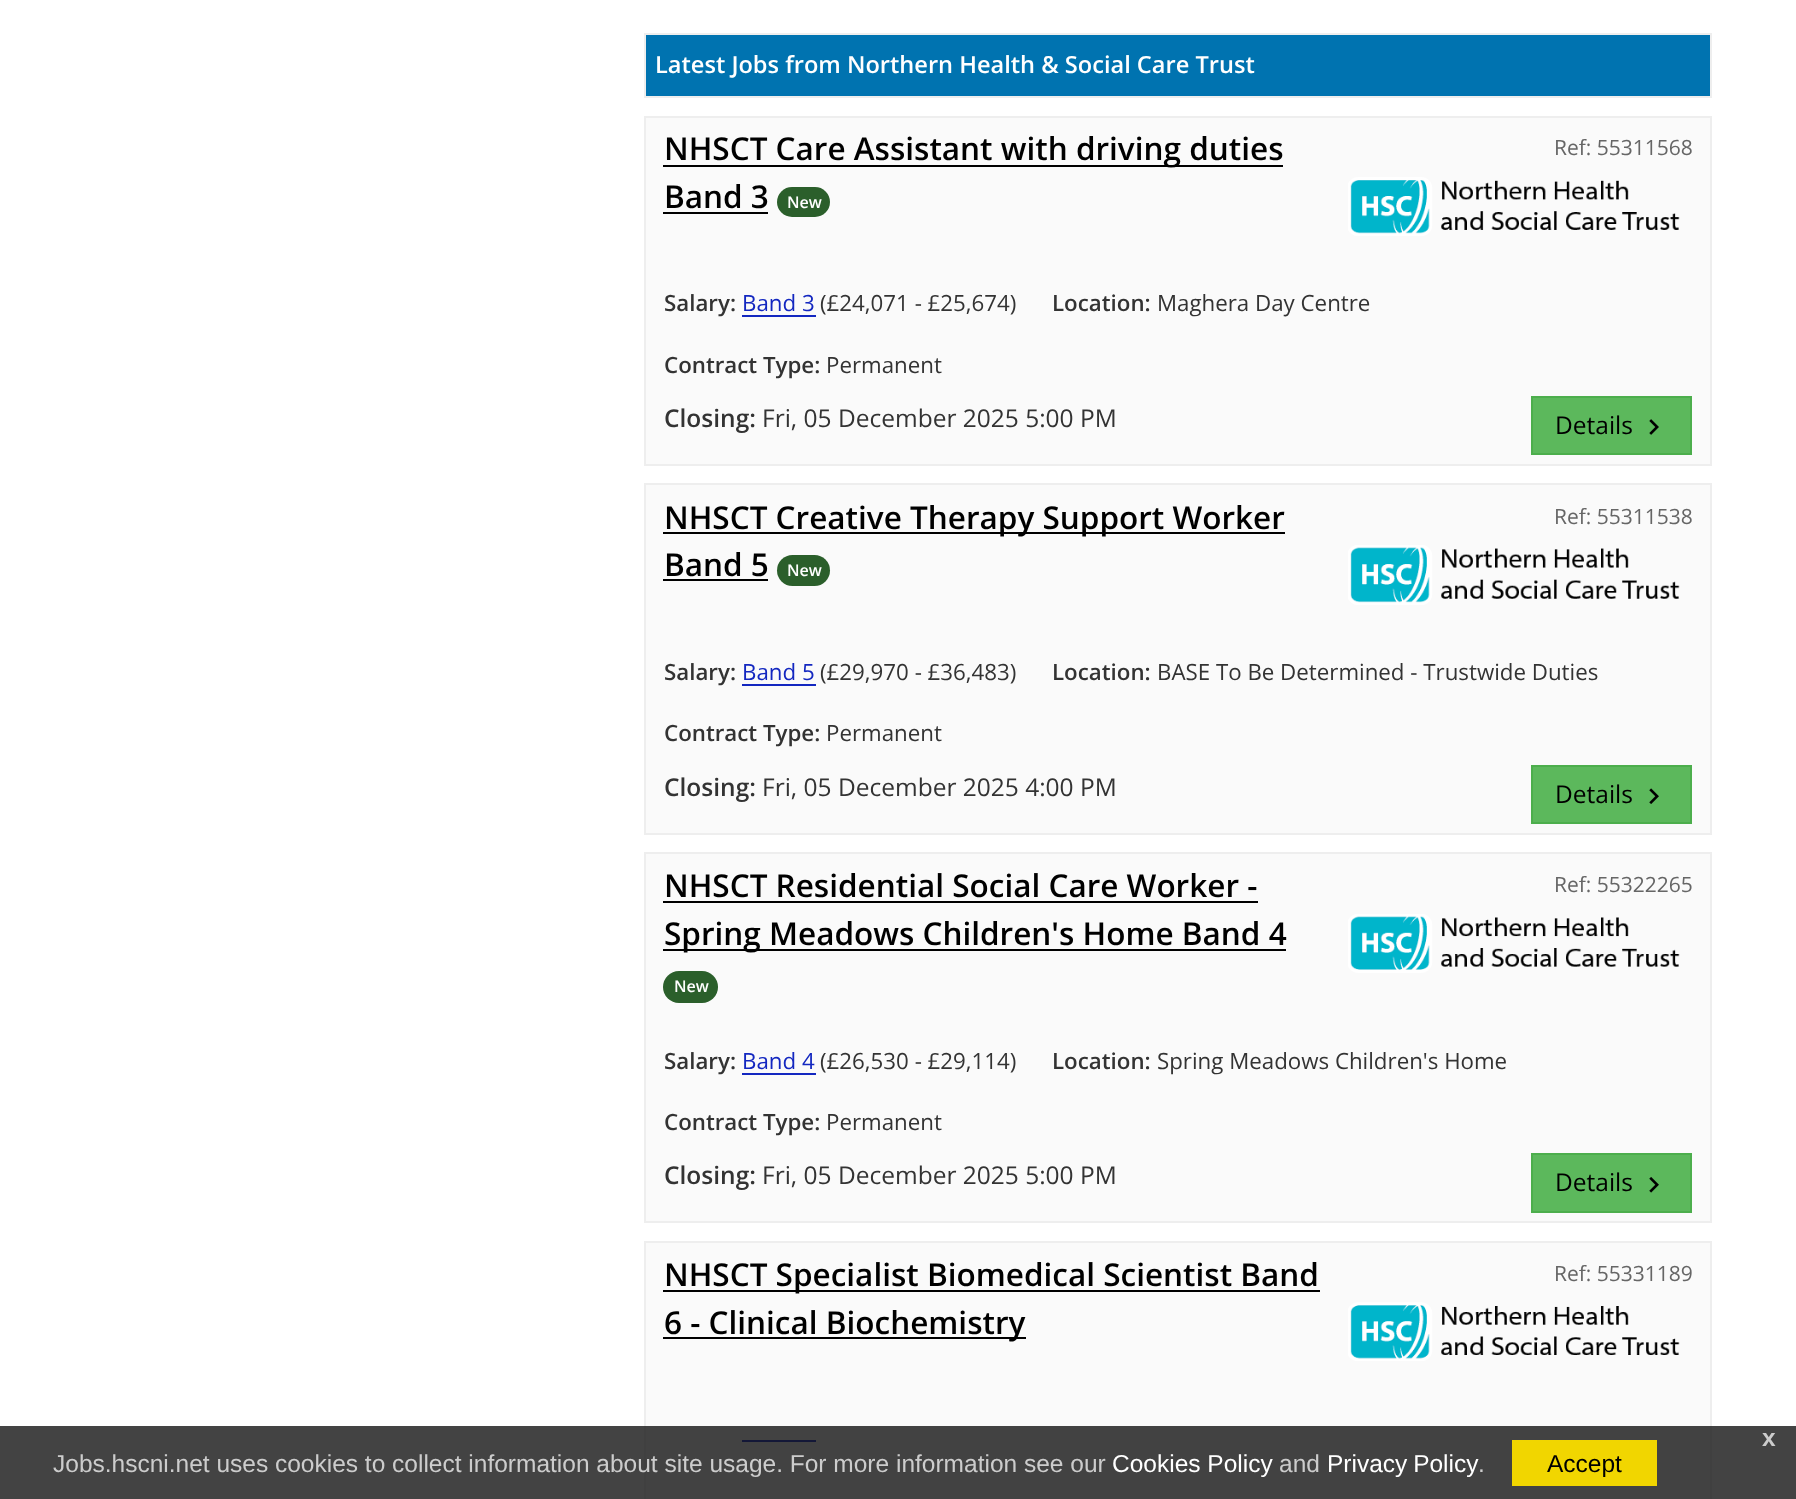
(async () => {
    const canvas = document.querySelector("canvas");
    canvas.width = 1796;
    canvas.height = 1499;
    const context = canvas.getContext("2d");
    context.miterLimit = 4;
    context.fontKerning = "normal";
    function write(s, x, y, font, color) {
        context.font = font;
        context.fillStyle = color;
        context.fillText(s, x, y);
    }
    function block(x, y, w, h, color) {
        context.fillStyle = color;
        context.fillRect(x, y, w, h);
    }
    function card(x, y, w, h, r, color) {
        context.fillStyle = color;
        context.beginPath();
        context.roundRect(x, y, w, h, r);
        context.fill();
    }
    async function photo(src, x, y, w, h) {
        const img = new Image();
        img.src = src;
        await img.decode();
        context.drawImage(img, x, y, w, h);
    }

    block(0, 0, 1796, 1499, "rgb(255, 255, 255)");
    context.fillStyle = "rgb(0, 115, 176)";
    context.beginPath();
    context.rect(645, 34, 1066, 63);
    context.fill();
    context.strokeStyle = "rgb(238, 238, 238)";
    context.lineWidth = 2;
    context.stroke();
    write("Latest Jobs from Northern Health & Social Care Trust", 655, 73, "600 23.6px Open Sans", "rgb(255, 255, 255)");
    context.fillStyle = "rgb(250, 250, 250)";
    context.beginPath();
    context.rect(645, 117, 1066, 348);
    context.fill();
    context.stroke();
    block(663, 165, 620, 2, "rgb(0, 0, 0)");
    write("NHSCT Care Assistant with driving duties", 664, 160, "600 31.5px Open Sans", "rgb(0, 0, 0)");
    write("Band 3", 664, 208, "600 31.5px Open Sans", "rgb(0, 0, 0)");
    block(663, 212, 105, 2, "rgb(0, 0, 0)");
    card(777, 187, 53, 30, 15, "rgb(43, 95, 43)");
    write("New", 787, 208, "600 16px Open Sans", "rgb(255, 255, 255)");
    write("Ref: 55311568", 1554, 155, "21px Open Sans", "rgb(102, 102, 102)");
    await photo("media/1.png", 1348, 177, 332, 59);
    write("Salary:", 664, 311, "600 22.3px Open Sans", "rgb(51, 51, 51)");
    write("Band 3", 742, 311, "22.3px Open Sans", "rgb(19, 39, 192)");
    block(742, 315, 74, 2, "rgb(19, 39, 192)");
    write("(£24,071 - £25,674)", 820, 311, "22.3px Open Sans", "rgb(51, 51, 51)");
    write("Location:", 1052, 311, "600 22.3px Open Sans", "rgb(51, 51, 51)");
    write("Maghera Day Centre", 1157, 311, "22.3px Open Sans", "rgb(51, 51, 51)");
    write("Contract Type:", 664, 373, "600 22.3px Open Sans", "rgb(51, 51, 51)");
    write("Permanent", 826, 373, "22.3px Open Sans", "rgb(51, 51, 51)");
    write("Closing:", 664, 427, "600 24.5px Open Sans", "rgb(51, 51, 51)");
    write("Fri, 05 December 2025 5:00 PM", 762, 427, "24.5px Open Sans", "rgb(51, 51, 51)");
    context.fillStyle = "rgb(92, 184, 92)";
    context.beginPath();
    context.rect(1532, 397, 159, 57);
    context.fill();
    context.strokeStyle = "rgb(76, 174, 76)";
    context.stroke();
    write("Details", 1555, 434, "24.5px Open Sans", "rgb(0, 0, 0)");
    await photo("media/2.png", 1649, 419, 10, 16);
    context.fillStyle = "rgb(250, 250, 250)";
    context.beginPath();
    context.rect(645, 484, 1066, 350);
    context.fill();
    context.strokeStyle = "rgb(238, 238, 238)";
    context.stroke();
    block(663, 532, 622, 2, "rgb(0, 0, 0)");
    write("NHSCT Creative Therapy Support Worker", 664, 529, "600 31.5px Open Sans", "rgb(0, 0, 0)");
    write("Band 5", 664, 576, "600 31.5px Open Sans", "rgb(0, 0, 0)");
    block(663, 579, 105, 2, "rgb(0, 0, 0)");
    card(777, 555, 53, 31, 15.5, "rgb(43, 95, 43)");
    write("New", 787, 576, "600 16px Open Sans", "rgb(255, 255, 255)");
    write("Ref: 55311538", 1554, 524, "21px Open Sans", "rgb(102, 102, 102)");
    await photo("media/3.png", 1348, 545, 332, 60);
    write("Salary:", 664, 680, "600 22.3px Open Sans", "rgb(51, 51, 51)");
    write("Band 5", 742, 680, "22.3px Open Sans", "rgb(19, 39, 192)");
    block(742, 684, 74, 2, "rgb(19, 39, 192)");
    write("(£29,970 - £36,483)", 820, 680, "22.3px Open Sans", "rgb(51, 51, 51)");
    write("Location:", 1052, 680, "600 22.3px Open Sans", "rgb(51, 51, 51)");
    write("BASE To Be Determined - Trustwide Duties", 1157, 680, "22.3px Open Sans", "rgb(51, 51, 51)");
    write("Contract Type:", 664, 741, "600 22.3px Open Sans", "rgb(51, 51, 51)");
    write("Permanent", 826, 741, "22.3px Open Sans", "rgb(51, 51, 51)");
    write("Closing:", 664, 796, "600 24.5px Open Sans", "rgb(51, 51, 51)");
    write("Fri, 05 December 2025 4:00 PM", 762, 796, "24.5px Open Sans", "rgb(51, 51, 51)");
    context.fillStyle = "rgb(92, 184, 92)";
    context.beginPath();
    context.rect(1532, 766, 159, 57);
    context.fill();
    context.strokeStyle = "rgb(76, 174, 76)";
    context.stroke();
    write("Details", 1555, 803, "24.5px Open Sans", "rgb(0, 0, 0)");
    await photo("media/4.png", 1649, 788, 10, 16);
    context.fillStyle = "rgb(250, 250, 250)";
    context.beginPath();
    context.rect(645, 853, 1066, 369);
    context.fill();
    context.strokeStyle = "rgb(238, 238, 238)";
    context.stroke();
    write("NHSCT Residential Social Care Worker -", 664, 897, "600 31.5px Open Sans", "rgb(0, 0, 0)");
    block(663, 901, 595, 2, "rgb(0, 0, 0)");
    block(663, 949, 623, 2, "rgb(0, 0, 0)");
    write("Spring Meadows Children's Home Band 4", 664, 945, "600 31.5px Open Sans", "rgb(0, 0, 0)");
    card(663, 971, 55, 32, 16, "rgb(43, 95, 43)");
    write("New", 674, 992, "600 16px Open Sans", "rgb(255, 255, 255)");
    write("Ref: 55322265", 1554, 892, "21px Open Sans", "rgb(102, 102, 102)");
    await photo("media/5.png", 1348, 914, 332, 59);
    write("Salary:", 664, 1069, "600 22.3px Open Sans", "rgb(51, 51, 51)");
    write("Band 4", 742, 1069, "22.3px Open Sans", "rgb(19, 39, 192)");
    block(742, 1073, 74, 2, "rgb(19, 39, 192)");
    write("(£26,530 - £29,114)", 820, 1069, "22.3px Open Sans", "rgb(51, 51, 51)");
    write("Location:", 1052, 1069, "600 22.3px Open Sans", "rgb(51, 51, 51)");
    write("Spring Meadows Children's Home", 1157, 1069, "22.3px Open Sans", "rgb(51, 51, 51)");
    write("Contract Type:", 664, 1130, "600 22.3px Open Sans", "rgb(51, 51, 51)");
    write("Permanent", 826, 1130, "22.3px Open Sans", "rgb(51, 51, 51)");
    write("Closing:", 664, 1184, "600 24.5px Open Sans", "rgb(51, 51, 51)");
    write("Fri, 05 December 2025 5:00 PM", 762, 1184, "24.5px Open Sans", "rgb(51, 51, 51)");
    context.fillStyle = "rgb(92, 184, 92)";
    context.beginPath();
    context.rect(1532, 1154, 159, 58);
    context.fill();
    context.strokeStyle = "rgb(76, 174, 76)";
    context.stroke();
    write("Details", 1555, 1191, "24.5px Open Sans", "rgb(0, 0, 0)");
    await photo("media/6.png", 1649, 1177, 10, 16);
    context.fillStyle = "rgb(250, 250, 250)";
    context.beginPath();
    context.rect(645, 1242, 1066, 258);
    context.fill();
    context.strokeStyle = "rgb(238, 238, 238)";
    context.stroke();
    block(663, 1290, 657, 2, "rgb(0, 0, 0)");
    write("NHSCT Specialist Biomedical Scientist Band", 664, 1286, "600 31.5px Open Sans", "rgb(0, 0, 0)");
    block(663, 1337, 363, 2, "rgb(0, 0, 0)");
    write("6 - Clinical Biochemistry", 664, 1334, "600 31.5px Open Sans", "rgb(0, 0, 0)");
    write("Ref: 55331189", 1554, 1281, "21px Open Sans", "rgb(102, 102, 102)");
    await photo("media/7.png", 1348, 1302, 332, 59);
    block(742, 1440, 74, 2, "rgb(19, 39, 192)");
    block(0, 1426, 1796, 73, "rgba(20, 20, 20, 0.8)");
    write("x", 1762, 1446, "bold 24.5px Liberation Sans", "rgb(204, 204, 204)");
    write("Jobs.hscni.net uses cookies to collect information about site usage. For more information see our", 53, 1472, "24.5px Liberation Sans", "rgb(204, 204, 204)");
    write("Cookies Policy", 1112, 1472, "24.5px Liberation Sans", "rgb(255, 255, 255)");
    write("and", 1279, 1472, "24.5px Liberation Sans", "rgb(204, 204, 204)");
    context.wordSpacing = "-1px";
    write("Privacy Policy", 1327, 1472, "24.5px Liberation Sans", "rgb(255, 255, 255)");
    context.wordSpacing = "0px";
    write(".", 1478, 1472, "24.5px Liberation Sans", "rgb(204, 204, 204)");
    block(1512, 1440, 145, 46, "rgb(241, 214, 0)");
    write("Accept", 1547, 1472, "24.5px Liberation Sans", "rgb(0, 0, 0)");
})();
